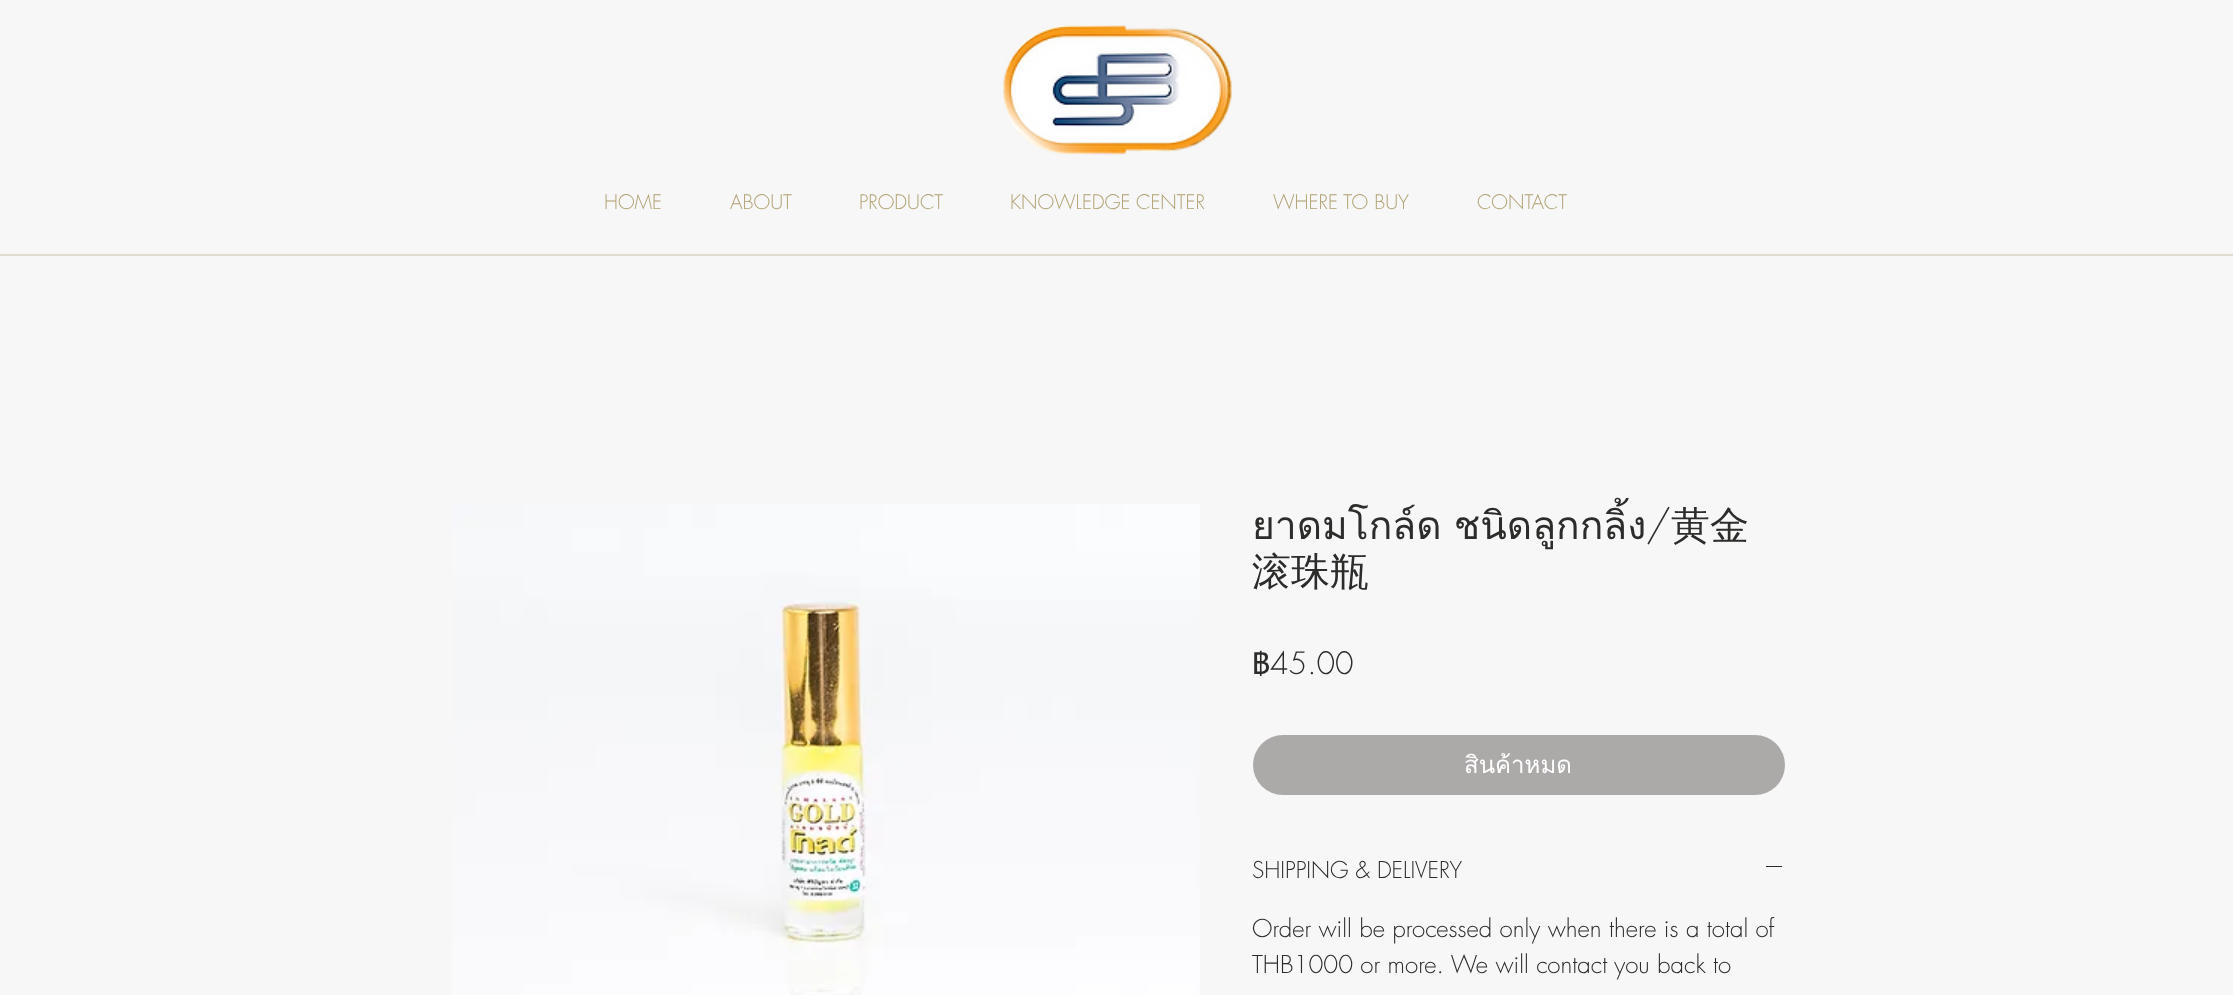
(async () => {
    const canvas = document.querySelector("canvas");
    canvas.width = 2233;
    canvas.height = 995;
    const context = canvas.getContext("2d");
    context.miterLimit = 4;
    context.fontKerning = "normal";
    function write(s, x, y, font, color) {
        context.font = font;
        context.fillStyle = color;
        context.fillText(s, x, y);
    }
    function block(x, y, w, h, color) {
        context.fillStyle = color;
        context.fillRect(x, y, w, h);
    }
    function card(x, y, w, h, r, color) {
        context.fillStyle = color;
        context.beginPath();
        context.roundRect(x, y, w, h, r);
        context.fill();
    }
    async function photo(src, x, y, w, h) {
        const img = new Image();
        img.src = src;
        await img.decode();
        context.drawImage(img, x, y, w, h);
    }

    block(0, 0, 2233, 995, "rgb(247, 247, 247)");
    await photo("media/1.png", 1003, 25, 229, 130);
    write("HOME", 604, 209, "300 19.5px futura", "rgb(176, 161, 113)");
    write("ABOUT", 730, 209, "300 19.5px futura", "rgb(176, 161, 113)");
    write("PRODUCT", 859, 209, "300 19.5px futura", "rgb(176, 161, 113)");
    write("KNOWLEDGE CENTER", 1010, 209, "300 19.5px futura", "rgb(176, 161, 113)");
    write("WHERE TO BUY", 1273, 209, "300 19.5px futura", "rgb(176, 161, 113)");
    write("CONTACT", 1477, 209, "300 19.5px futura", "rgb(176, 161, 113)");
    block(0, 254, 2233, 2, "rgb(224, 220, 206)");
    await photo("media/2.png", 452, 504, 748, 491);
    context.wordSpacing = "-1px";
    write("ยาดมโกล์ด ชนิดลูกกลิ้ง", 1252, 539, "39px Loma", "rgb(44, 44, 43)");
    context.wordSpacing = "0px";
    write("/", 1646, 539, "300 39px futura", "rgb(44, 44, 43)");
    write("黄金", 1671, 539, "500 39px WenQuanYi Zen Hei", "rgb(44, 44, 43)");
    write("滚珠瓶", 1252, 585, "500 39px WenQuanYi Zen Hei", "rgb(44, 44, 43)");
    write("฿", 1252, 674, "30px Loma", "rgb(44, 44, 43)");
    write("45.00", 1270, 674, "300 30px futura", "rgb(44, 44, 43)");
    card(1253, 735, 532, 60, 30, "rgb(172, 169, 169)");
    write("สินค้าหมด", 1464, 773, "24px Loma", "rgb(255, 255, 255)");
    write("SHIPPING & DELIVERY", 1252, 878, "300 22.5px futura", "rgb(44, 44, 43)");
    block(1766, 866, 16, 1, "rgb(44, 44, 43)");
    write("Order will be processed only when there is a total of", 1252, 937, "300 24px futura", "rgb(44, 44, 43)");
    write("THB1000 or more. We will contact you back to", 1252, 973, "300 24px futura", "rgb(44, 44, 43)");
})();
